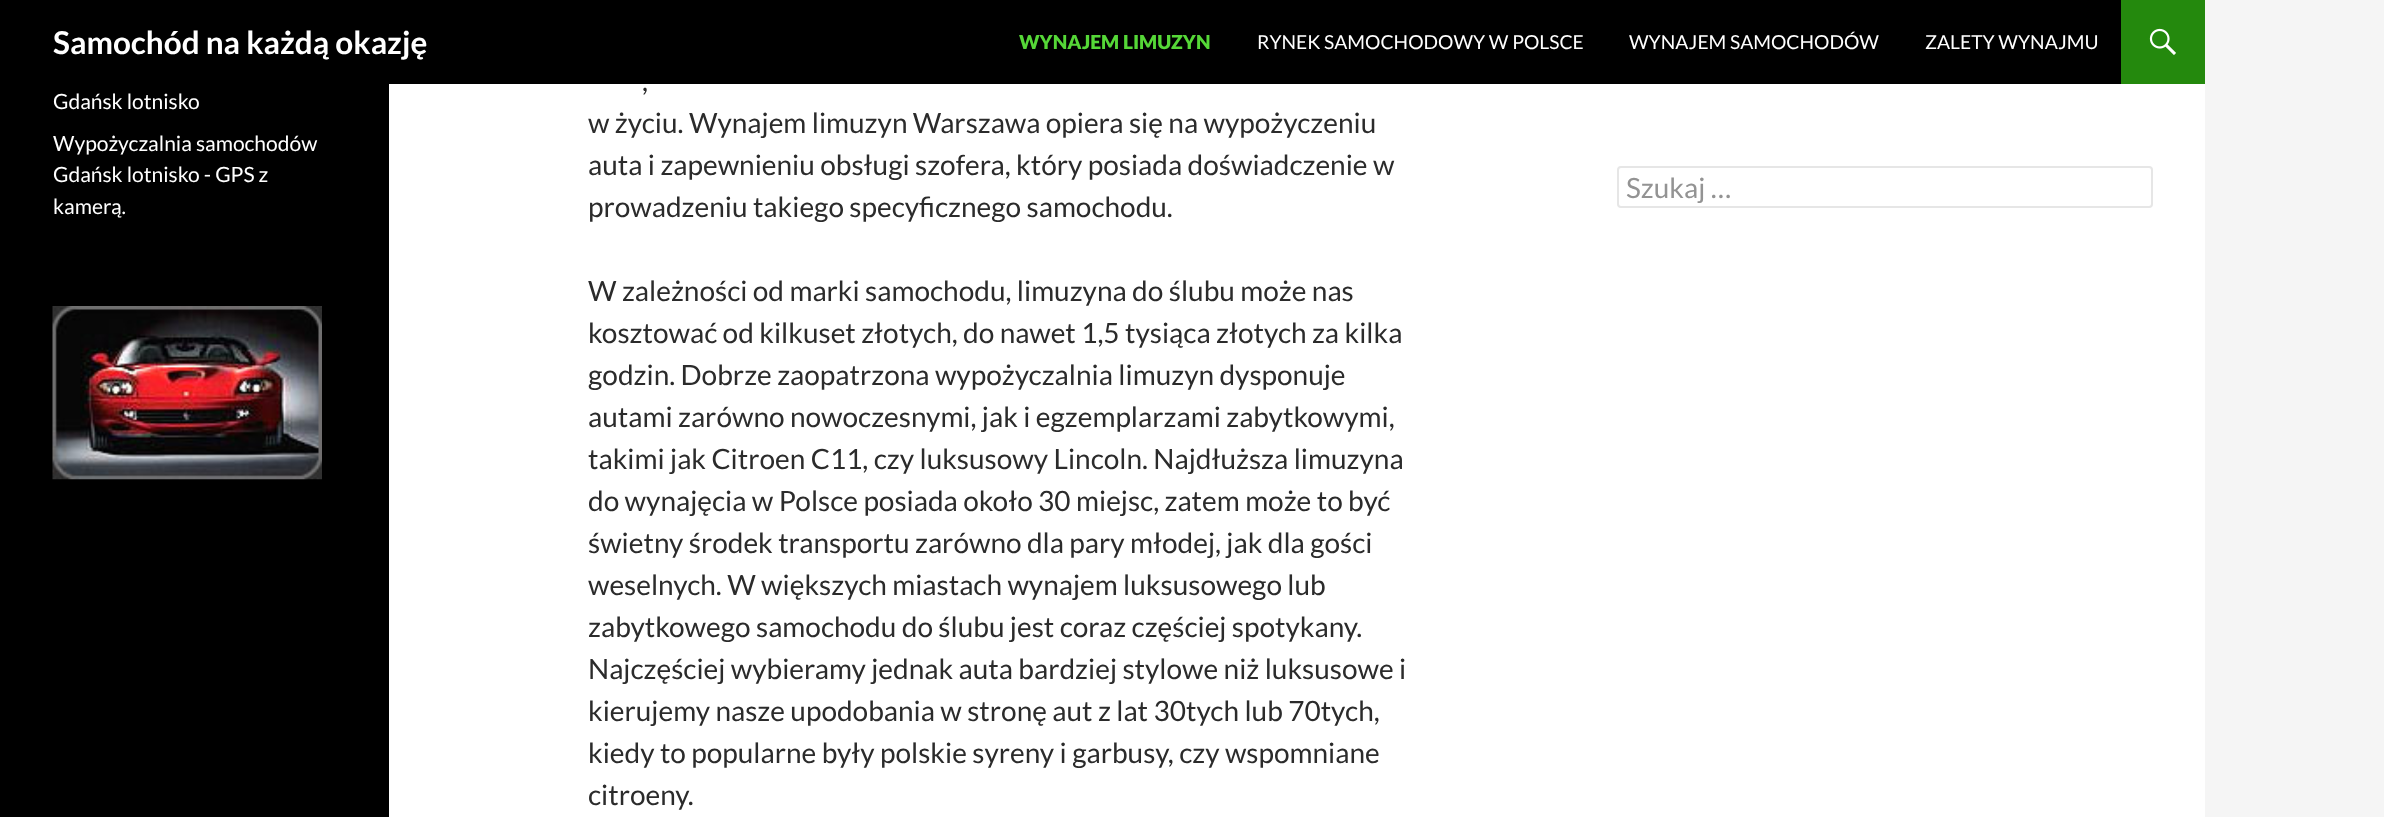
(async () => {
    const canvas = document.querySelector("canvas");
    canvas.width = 2384;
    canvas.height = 817;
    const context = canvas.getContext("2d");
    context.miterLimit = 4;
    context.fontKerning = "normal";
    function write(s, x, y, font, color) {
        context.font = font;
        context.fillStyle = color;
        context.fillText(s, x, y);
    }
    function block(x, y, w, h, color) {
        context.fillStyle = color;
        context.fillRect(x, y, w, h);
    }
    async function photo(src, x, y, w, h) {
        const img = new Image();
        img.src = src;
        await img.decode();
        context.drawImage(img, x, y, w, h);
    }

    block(0, 0, 2384, 817, "rgb(245, 245, 245)");
    block(389, 84, 1816, 733, "rgb(255, 255, 255)");
    block(0, 0, 2121, 84, "rgb(0, 0, 0)");
    write("Samochód na każdą okazję", 53, 54, "bold 31.5px Lato", "rgb(255, 255, 255)");
    write("WYNAJEM LIMUZYN", 1019, 49, "900 19.25px Lato", "rgb(85, 215, 55)");
    write("RYNEK SAMOCHODOWY W POLSCE", 1257, 49, "19.25px Lato", "rgb(255, 255, 255)");
    write("WYNAJEM SAMOCHODÓW", 1629, 49, "19.25px Lato", "rgb(255, 255, 255)");
    write("ZALETY WYNAJMU", 1925, 49, "19.25px Lato", "rgb(255, 255, 255)");
    block(2121, 0, 84, 84, "rgb(36, 137, 13)");
    await photo("media/1.png", 2149, 28, 27, 27);
    block(0, 84, 389, 733, "rgb(0, 0, 0)");
    write("Gdańsk lotnisko", 53, 109, "21px Lato", "rgb(255, 255, 255)");
    write("Wypożyczalnia samochodów", 53, 151, "21px Lato", "rgb(255, 255, 255)");
    write("Gdańsk lotnisko - GPS z", 53, 182, "21px Lato", "rgb(255, 255, 255)");
    write("kamerą.", 53, 214, "21px Lato", "rgb(255, 255, 255)");
    await photo("media/2.png", 52, 306, 270, 174);
    write(",", 642, 91, "28px Lato", "rgb(43, 43, 43)");
    write("w życiu. Wynajem limuzyn Warszawa opiera się na wypożyczeniu", 588, 133, "28px Lato", "rgb(43, 43, 43)");
    write("auta i zapewnieniu obsługi szofera, który posiada doświadczenie w", 588, 175, "28px Lato", "rgb(43, 43, 43)");
    write("prowadzeniu takiego specyficznego samochodu.", 588, 217, "28px Lato", "rgb(43, 43, 43)");
    write("W zależności od marki samochodu, limuzyna do ślubu może nas", 588, 301, "28px Lato", "rgb(43, 43, 43)");
    write("kosztować od kilkuset złotych, do nawet 1,5 tysiąca złotych za kilka", 588, 343, "28px Lato", "rgb(43, 43, 43)");
    write("godzin. Dobrze zaopatrzona wypożyczalnia limuzyn dysponuje", 588, 385, "28px Lato", "rgb(43, 43, 43)");
    write("autami zarówno nowoczesnymi, jak i egzemplarzami zabytkowymi,", 588, 427, "28px Lato", "rgb(43, 43, 43)");
    write("takimi jak Citroen C11, czy luksusowy Lincoln. Najdłuższa limuzyna", 588, 469, "28px Lato", "rgb(43, 43, 43)");
    write("do wynajęcia w Polsce posiada około 30 miejsc, zatem może to być", 588, 511, "28px Lato", "rgb(43, 43, 43)");
    write("świetny środek transportu zarówno dla pary młodej, jak dla gości", 588, 553, "28px Lato", "rgb(43, 43, 43)");
    write("weselnych. W większych miastach wynajem luksusowego lub", 588, 595, "28px Lato", "rgb(43, 43, 43)");
    write("zabytkowego samochodu do ślubu jest coraz częściej spotykany.", 588, 637, "28px Lato", "rgb(43, 43, 43)");
    write("Najczęściej wybieramy jednak auta bardziej stylowe niż luksusowe i", 588, 679, "28px Lato", "rgb(43, 43, 43)");
    write("kierujemy nasze upodobania w stronę aut z lat 30tych lub 70tych,", 588, 721, "28px Lato", "rgb(43, 43, 43)");
    write("kiedy to popularne były polskie syreny i garbusy, czy wspomniane", 588, 763, "28px Lato", "rgb(43, 43, 43)");
    write("citroeny.", 588, 805, "28px Lato", "rgb(43, 43, 43)");
    context.beginPath();
    context.roundRect(1618, 167, 534, 40, 3);
    context.strokeStyle = "rgb(230, 230, 230)";
    context.lineWidth = 2;
    context.stroke();
    write("Szukaj …", 1626, 198, "28px Lato", "rgb(147, 147, 147)");
})();
